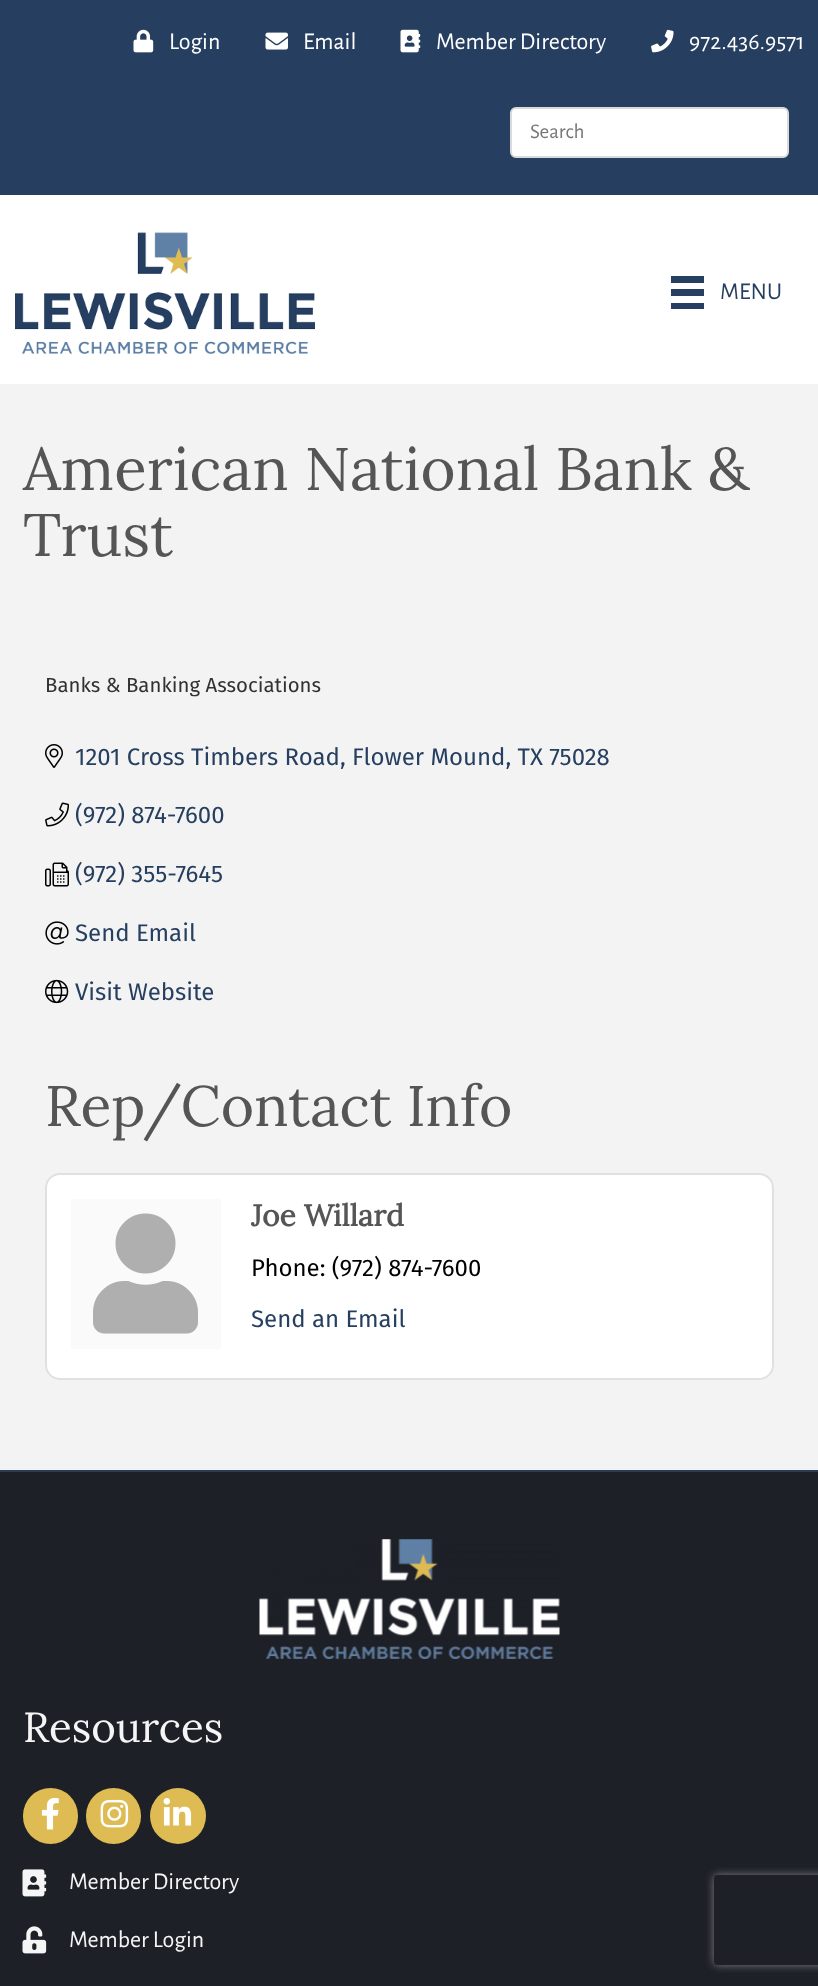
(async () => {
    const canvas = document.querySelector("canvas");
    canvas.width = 818;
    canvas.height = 1986;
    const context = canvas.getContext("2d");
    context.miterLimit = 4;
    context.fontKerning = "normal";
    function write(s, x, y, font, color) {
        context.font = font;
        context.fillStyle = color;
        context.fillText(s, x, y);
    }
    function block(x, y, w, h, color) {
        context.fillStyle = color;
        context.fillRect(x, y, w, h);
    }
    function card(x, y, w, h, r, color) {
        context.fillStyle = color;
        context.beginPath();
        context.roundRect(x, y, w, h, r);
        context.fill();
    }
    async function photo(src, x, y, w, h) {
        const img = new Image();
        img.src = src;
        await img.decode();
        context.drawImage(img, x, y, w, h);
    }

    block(0, 0, 818, 1986, "rgb(38, 63, 96)");
    await photo("media/1.png", 133, 29, 21, 24);
    write("Login", 169, 49, "24px Alegreya Sans", "rgb(255, 255, 255)");
    await photo("media/2.png", 265, 32, 23, 18);
    write("Email", 303, 49, "24px Alegreya Sans", "rgb(255, 255, 255)");
    await photo("media/3.png", 400, 29, 21, 24);
    write("Member Directory", 436, 49, "24px Alegreya Sans", "rgb(255, 255, 255)");
    await photo("media/4.png", 651, 29, 23, 24);
    write("972.436.9571", 689, 49, "24px Alegreya Sans", "rgb(255, 255, 255)");
    context.beginPath();
    context.roundRect(511, 108, 277, 49, 5);
    context.fill();
    context.strokeStyle = "rgb(218, 218, 218)";
    context.lineWidth = 2;
    context.stroke();
    write("Search", 530, 138, "21px Alegreya Sans", "rgb(119, 119, 119)");
    block(0, 195, 818, 189, "rgb(255, 255, 255)");
    await photo("media/5.png", 15, 232, 300, 122);
    block(671, 276, 33, 7, "rgb(38, 63, 96)");
    block(671, 289, 33, 7, "rgb(38, 63, 96)");
    block(671, 303, 33, 6, "rgb(38, 63, 96)");
    write("MENU", 720, 299, "24px Alegreya Sans", "rgb(38, 63, 96)");
    block(0, 384, 818, 1086, "rgb(243, 243, 243)");
    write("American National Bank &", 23, 490, "60px Lora", "rgb(85, 85, 85)");
    write("Trust", 23, 556, "60px Lora", "rgb(85, 85, 85)");
    write("Banks & Banking Associations", 45, 692, "20.4px Fira Sans", "rgb(49, 49, 49)");
    await photo("media/6.png", 45, 744, 18, 24);
    write("1201 Cross Timbers Road, Flower Mound, TX 75028", 75, 765, "24px Fira Sans", "rgb(38, 63, 96)");
    await photo("media/7.png", 45, 802, 25, 25);
    write("(972) 874-7600", 75, 823, "24px Fira Sans", "rgb(38, 63, 96)");
    await photo("media/8.png", 45, 862, 24, 25);
    write("(972) 355-7645", 75, 882, "24px Fira Sans", "rgb(38, 63, 96)");
    await photo("media/9.png", 45, 921, 24, 24);
    write("Send Email", 75, 941, "24px Fira Sans", "rgb(38, 63, 96)");
    await photo("media/10.png", 45, 979, 24, 25);
    write("Visit Website", 75, 1000, "24px Fira Sans", "rgb(38, 63, 96)");
    write("Rep/Contact Info", 45, 1126, "57px Lora", "rgb(85, 85, 85)");
    card(45, 1173, 729, 207, 15, "rgb(255, 255, 255)");
    context.beginPath();
    context.roundRect(46, 1174, 727, 205, 14);
    context.strokeStyle = "rgba(0, 0, 0, 0.12)";
    context.stroke();
    block(71, 1199, 150, 150, "rgb(250, 250, 250)");
    await photo("media/11.png", 93, 1213, 105, 121);
    write("Joe Willard", 251, 1226, "bold 30px Lora", "rgb(85, 85, 85)");
    write("Phone: (972) 874-7600", 251, 1276, "24px Fira Sans", "rgb(0, 0, 0)");
    write("Send an Email", 251, 1327, "24px Fira Sans", "rgb(38, 63, 96)");
    block(0, 1472, 818, 514, "rgb(30, 32, 40)");
    block(0, 1470, 818, 2, "rgb(44, 58, 86)");
    await photo("media/12.png", 259, 1539, 301, 120);
    write("Resources", 23, 1742, "42px Lora", "rgb(245, 245, 245)");
    card(23, 1788, 55, 56, 27.5, "rgb(222, 187, 83)");
    await photo("media/13.png", 41, 1797, 18, 33);
    card(86, 1788, 55, 56, 27.5, "rgb(222, 187, 83)");
    await photo("media/14.png", 100, 1799, 29, 29);
    context.beginPath();
    context.arc(178, 1816, 28, 0, Math.PI * 2);
    context.fill();
    await photo("media/15.png", 163, 1798, 29, 28);
    await photo("media/16.png", 22, 1869, 25, 28);
    write("Member Directory", 69, 1889, "24px Alegreya Sans", "rgb(245, 245, 245)");
    await photo("media/17.png", 22, 1926, 25, 28);
    write("Member Login", 69, 1947, "24px Alegreya Sans", "rgb(245, 245, 245)");
    context.save();
    context.beginPath();
    context.moveTo(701, 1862);
    context.lineTo(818, 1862);
    context.lineTo(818, 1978);
    context.lineTo(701, 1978);
    context.closePath();
    context.moveTo(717, 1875);
    context.lineTo(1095, 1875);
    context.bezierCurveTo(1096.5, 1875, 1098, 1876.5, 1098, 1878);
    context.lineTo(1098, 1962);
    context.bezierCurveTo(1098, 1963.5, 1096.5, 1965, 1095, 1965);
    context.lineTo(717, 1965);
    context.bezierCurveTo(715.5, 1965, 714, 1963.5, 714, 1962);
    context.lineTo(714, 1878);
    context.bezierCurveTo(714, 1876.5, 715.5, 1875, 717, 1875);
    context.closePath();
    context.clip("evenodd");
    context.fillStyle = "rgb(128, 128, 128)";
    context.filter = "blur(4px)";
    context.beginPath();
    context.roundRect(714, 1875, 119, 90, 3);
    context.fill();
    context.filter = "none";
    context.restore();
})();
